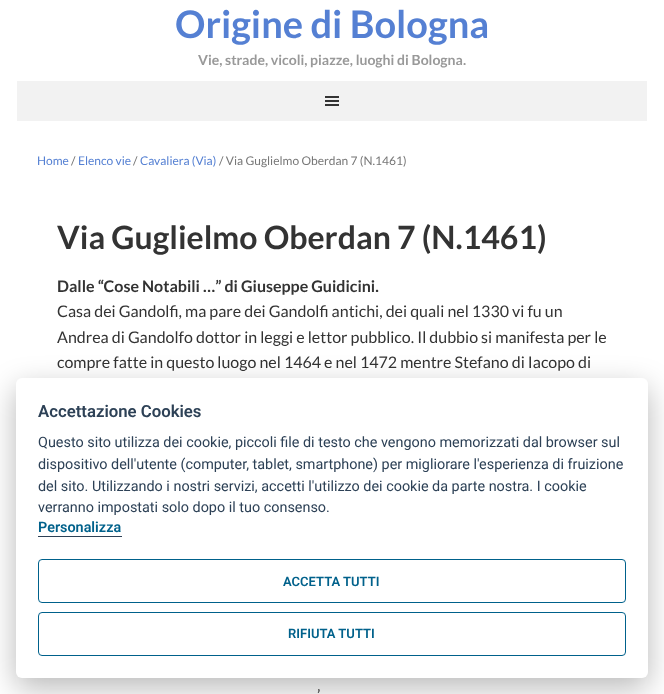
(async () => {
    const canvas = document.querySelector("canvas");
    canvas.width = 664;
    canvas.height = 694;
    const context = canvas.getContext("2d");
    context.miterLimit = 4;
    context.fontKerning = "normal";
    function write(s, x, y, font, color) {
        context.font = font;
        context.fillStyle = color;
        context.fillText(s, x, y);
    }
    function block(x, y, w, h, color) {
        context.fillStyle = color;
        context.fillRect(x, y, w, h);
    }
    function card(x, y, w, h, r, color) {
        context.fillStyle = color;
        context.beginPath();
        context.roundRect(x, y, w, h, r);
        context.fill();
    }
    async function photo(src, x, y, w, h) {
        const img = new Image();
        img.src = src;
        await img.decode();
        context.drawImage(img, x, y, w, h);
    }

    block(0, 0, 664, 694, "rgb(255, 255, 255)");
    write("Origine di Bologna", 175, 38, "bold 38px Lato", "rgb(85, 128, 211)");
    write("Vie, strade, vicoli, piazze, luoghi di Bologna.", 198, 65, "bold 14px Lato", "rgb(153, 153, 153)");
    block(17, 81, 630, 40, "rgb(242, 242, 242)");
    await photo("media/1.png", 325, 96, 14, 10);
    write("Home", 37, 165, "12px Lato", "rgb(85, 128, 211)");
    write("/", 71, 165, "12px Lato", "rgb(119, 119, 119)");
    write("Elenco vie", 78, 165, "12px Lato", "rgb(85, 128, 211)");
    write("/", 133, 165, "12px Lato", "rgb(119, 119, 119)");
    write("Cavaliera (Via)", 140, 165, "12px Lato", "rgb(85, 128, 211)");
    write("/ Via Guglielmo Oberdan 7 (N.1461)", 219, 165, "12px Lato", "rgb(119, 119, 119)");
    write("Via Guglielmo Oberdan 7 (N.1461)", 57, 249, "bold 32px Lato", "rgb(51, 51, 51)");
    write("Dalle “Cose Notabili …” di Giuseppe Guidicini.", 57, 292, "bold 16px Lato", "rgb(51, 51, 51)");
    write("Casa dei Gandolfi, ma pare dei Gandolfi antichi, dei quali nel 1330 vi fu un", 57, 317, "16px Lato", "rgb(51, 51, 51)");
    write("Andrea di Gandolfo dottor in leggi e lettor pubblico. Il dubbio si manifesta per le", 57, 343, "16px Lato", "rgb(51, 51, 51)");
    write("compre fatte in questo luogo nel 1464 e nel 1472 mentre Stefano di Iacopo di", 57, 368, "16px Lato", "rgb(51, 51, 51)");
    write("’", 317, 701, "16px Lato", "rgb(51, 51, 51)");
    context.fillStyle = "rgba(2, 2, 3, 0.28)";
    context.filter = "blur(15px)";
    context.beginPath();
    context.roundRect(16, 388, 632, 300, 6);
    context.fill();
    context.filter = "none";
    card(16, 378, 632, 300, 6, "rgb(255, 255, 255)");
    write("Accettazione Cookies", 38, 417, "600 16.75px Roboto", "rgb(45, 65, 86)");
    write("Questo sito utilizza dei cookie, piccoli file di testo che vengono memorizzati dal browser sul", 38, 447, "14.4px Roboto", "rgb(45, 65, 86)");
    write("dispositivo dell'utente (computer, tablet, smartphone) per migliorare l'esperienza di fruizione", 38, 469, "14.4px Roboto", "rgb(45, 65, 86)");
    write("del sito. Utilizzando i nostri servizi, accetti l'utilizzo dei cookie da parte nostra. I cookie", 38, 491, "14.4px Roboto", "rgb(45, 65, 86)");
    write("verranno impostati solo dopo il tuo consenso.", 38, 512, "14.4px Roboto", "rgb(45, 65, 86)");
    block(38, 536, 84, 1, "rgb(45, 65, 86)");
    write("Personalizza", 38, 532, "600 14.4px Roboto", "rgb(0, 97, 139)");
    context.beginPath();
    context.roundRect(38.5, 559.5, 587, 43, 3.5);
    context.strokeStyle = "rgb(0, 97, 139)";
    context.stroke();
    write("ACCETTA TUTTI", 283, 586, "600 13px Roboto", "rgb(0, 97, 139)");
    context.beginPath();
    context.roundRect(38.5, 612.5, 587, 43, 3.5);
    context.stroke();
    write("RIFIUTA TUTTI", 288, 638, "600 13px Roboto", "rgb(0, 97, 139)");
})();
